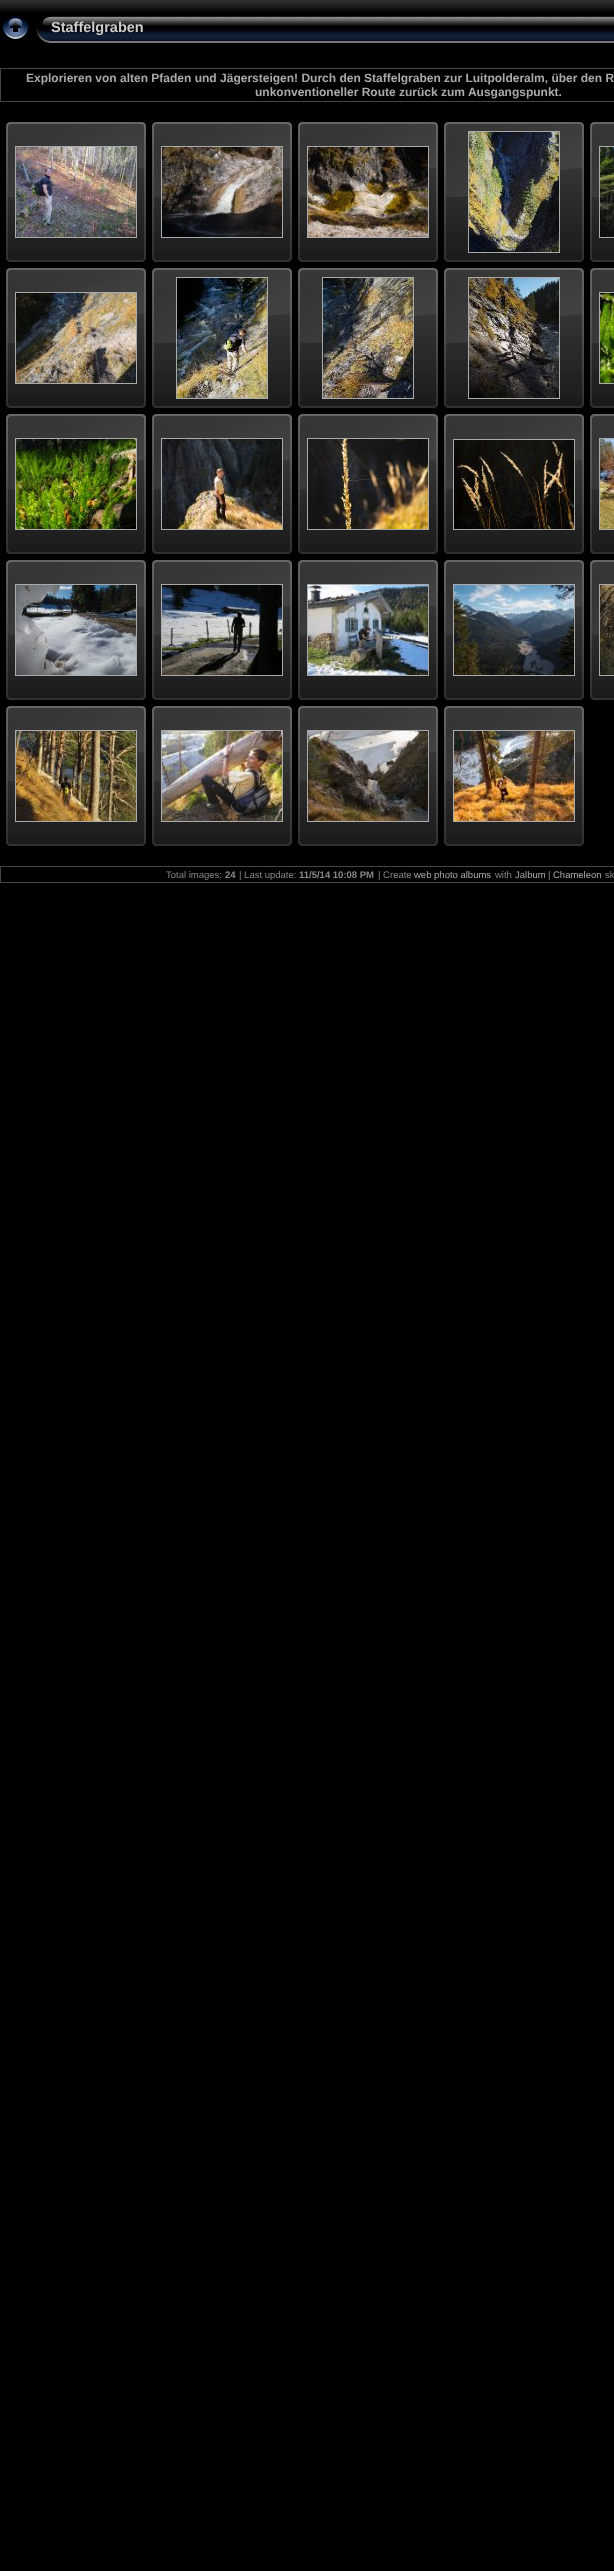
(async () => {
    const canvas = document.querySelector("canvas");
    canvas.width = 614;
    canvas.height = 2571;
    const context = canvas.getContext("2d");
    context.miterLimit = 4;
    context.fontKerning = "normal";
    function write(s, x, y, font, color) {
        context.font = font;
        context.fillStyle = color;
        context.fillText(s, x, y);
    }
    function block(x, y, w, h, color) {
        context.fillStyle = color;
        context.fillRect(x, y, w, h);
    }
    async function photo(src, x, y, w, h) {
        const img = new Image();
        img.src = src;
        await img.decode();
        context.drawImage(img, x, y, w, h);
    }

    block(0, 0, 614, 2571, "rgb(0, 0, 0)");
    await photo("media/1.png", 0, 0, 614, 12);
    await photo("media/2.png", 3, 16, 25, 23);
    await photo("media/3.png", 36, 16, 15, 27);
    await photo("media/4.png", 51, 16, 563, 27);
    write("Staffelgraben", 51, 32, "bold 14.5px Liberation Sans", "rgb(204, 204, 204)");
    block(0, 68, 614, 1, "rgb(68, 68, 68)");
    block(0, 101, 614, 1, "rgb(68, 68, 68)");
    block(0, 68, 1, 34, "rgb(68, 68, 68)");
    write("Explorieren von alten Pfaden und Jägersteigen! Durch den Staffelgraben zur Luitpolderalm, über den R", 26, 82, "bold 12px Liberation Sans", "rgb(170, 170, 170)");
    write("unkonventioneller Route zurück zum Ausgangspunkt.", 255, 96, "bold 12px Liberation Sans", "rgb(170, 170, 170)");
    await photo("media/5.png", 6, 122, 140, 140);
    context.strokeStyle = "rgb(170, 170, 170)";
    context.strokeRect(15.5, 146.5, 121, 91);
    await photo("media/6.png", 16, 147, 120, 90);
    await photo("media/5.png", 152, 122, 140, 140);
    context.strokeRect(161.5, 146.5, 121, 91);
    await photo("media/7.png", 162, 147, 120, 90);
    await photo("media/5.png", 298, 122, 140, 140);
    context.strokeRect(307.5, 146.5, 121, 91);
    await photo("media/8.png", 308, 147, 120, 90);
    await photo("media/5.png", 444, 122, 140, 140);
    context.strokeRect(468.5, 131.5, 91, 121);
    await photo("media/9.png", 469, 132, 90, 120);
    await photo("media/10.png", 590, 122, 24, 140);
    context.strokeRect(599.5, 146.5, 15, 91);
    await photo("media/11.png", 600, 147, 14, 90);
    await photo("media/5.png", 6, 268, 140, 140);
    context.strokeRect(15.5, 292.5, 121, 91);
    await photo("media/12.png", 16, 293, 120, 90);
    await photo("media/5.png", 152, 268, 140, 140);
    context.strokeRect(176.5, 277.5, 91, 121);
    await photo("media/13.png", 177, 278, 90, 120);
    await photo("media/5.png", 298, 268, 140, 140);
    context.strokeRect(322.5, 277.5, 91, 121);
    await photo("media/14.png", 323, 278, 90, 120);
    await photo("media/5.png", 444, 268, 140, 140);
    context.strokeRect(468.5, 277.5, 91, 121);
    await photo("media/15.png", 469, 278, 90, 120);
    await photo("media/10.png", 590, 268, 24, 140);
    context.strokeRect(599.5, 292.5, 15, 91);
    await photo("media/16.png", 600, 293, 14, 90);
    await photo("media/5.png", 6, 414, 140, 140);
    context.strokeRect(15.5, 438.5, 121, 91);
    await photo("media/17.png", 16, 439, 120, 90);
    await photo("media/5.png", 152, 414, 140, 140);
    context.strokeRect(161.5, 438.5, 121, 91);
    await photo("media/18.png", 162, 439, 120, 90);
    await photo("media/5.png", 298, 414, 140, 140);
    context.strokeRect(307.5, 438.5, 121, 91);
    await photo("media/19.png", 308, 439, 120, 90);
    await photo("media/5.png", 444, 414, 140, 140);
    context.strokeRect(453.5, 439.5, 121, 90);
    await photo("media/20.png", 454, 440, 120, 89);
    await photo("media/10.png", 590, 414, 24, 140);
    context.strokeRect(599.5, 438.5, 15, 91);
    await photo("media/21.png", 600, 439, 14, 90);
    await photo("media/5.png", 6, 560, 140, 140);
    context.strokeRect(15.5, 584.5, 121, 91);
    await photo("media/22.png", 16, 585, 120, 90);
    await photo("media/5.png", 152, 560, 140, 140);
    context.strokeRect(161.5, 584.5, 121, 91);
    await photo("media/23.png", 162, 585, 120, 90);
    await photo("media/5.png", 298, 560, 140, 140);
    context.strokeRect(307.5, 584.5, 121, 91);
    await photo("media/24.png", 308, 585, 120, 90);
    await photo("media/5.png", 444, 560, 140, 140);
    context.strokeRect(453.5, 584.5, 121, 91);
    await photo("media/25.png", 454, 585, 120, 90);
    await photo("media/10.png", 590, 560, 24, 140);
    context.strokeRect(599.5, 584.5, 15, 91);
    await photo("media/26.png", 600, 585, 14, 90);
    await photo("media/5.png", 6, 706, 140, 140);
    context.strokeRect(15.5, 730.5, 121, 91);
    await photo("media/27.png", 16, 731, 120, 90);
    await photo("media/5.png", 152, 706, 140, 140);
    context.strokeRect(161.5, 730.5, 121, 91);
    await photo("media/28.png", 162, 731, 120, 90);
    await photo("media/5.png", 298, 706, 140, 140);
    context.strokeRect(307.5, 730.5, 121, 91);
    await photo("media/29.png", 308, 731, 120, 90);
    await photo("media/5.png", 444, 706, 140, 140);
    context.strokeRect(453.5, 730.5, 121, 91);
    await photo("media/30.png", 454, 731, 120, 90);
    block(0, 866, 614, 1, "rgb(68, 68, 68)");
    block(0, 882, 614, 1, "rgb(68, 68, 68)");
    block(0, 866, 1, 17, "rgb(68, 68, 68)");
    write("Total images:", 166, 878, "9.5px Liberation Sans", "rgb(136, 136, 136)");
    write("24", 225, 878, "bold 9.5px Liberation Sans", "rgb(136, 136, 136)");
    write("| Last update:", 239, 878, "9.5px Liberation Sans", "rgb(136, 136, 136)");
    write("11/5/14 10:08 PM", 299, 878, "bold 9.5px Liberation Sans", "rgb(136, 136, 136)");
    write("| Create", 378, 878, "9.5px Liberation Sans", "rgb(136, 136, 136)");
    write("web photo albums", 414, 878, "9.5px Liberation Sans", "rgb(170, 170, 170)");
    write("with", 495, 878, "9.5px Liberation Sans", "rgb(136, 136, 136)");
    write("Jalbum", 515, 878, "9.5px Liberation Sans", "rgb(170, 170, 170)");
    write("|", 548, 878, "9.5px Liberation Sans", "rgb(136, 136, 136)");
    write("Chameleon", 553, 878, "9.5px Liberation Sans", "rgb(170, 170, 170)");
    write("sk", 605, 878, "9.5px Liberation Sans", "rgb(136, 136, 136)");
})();
